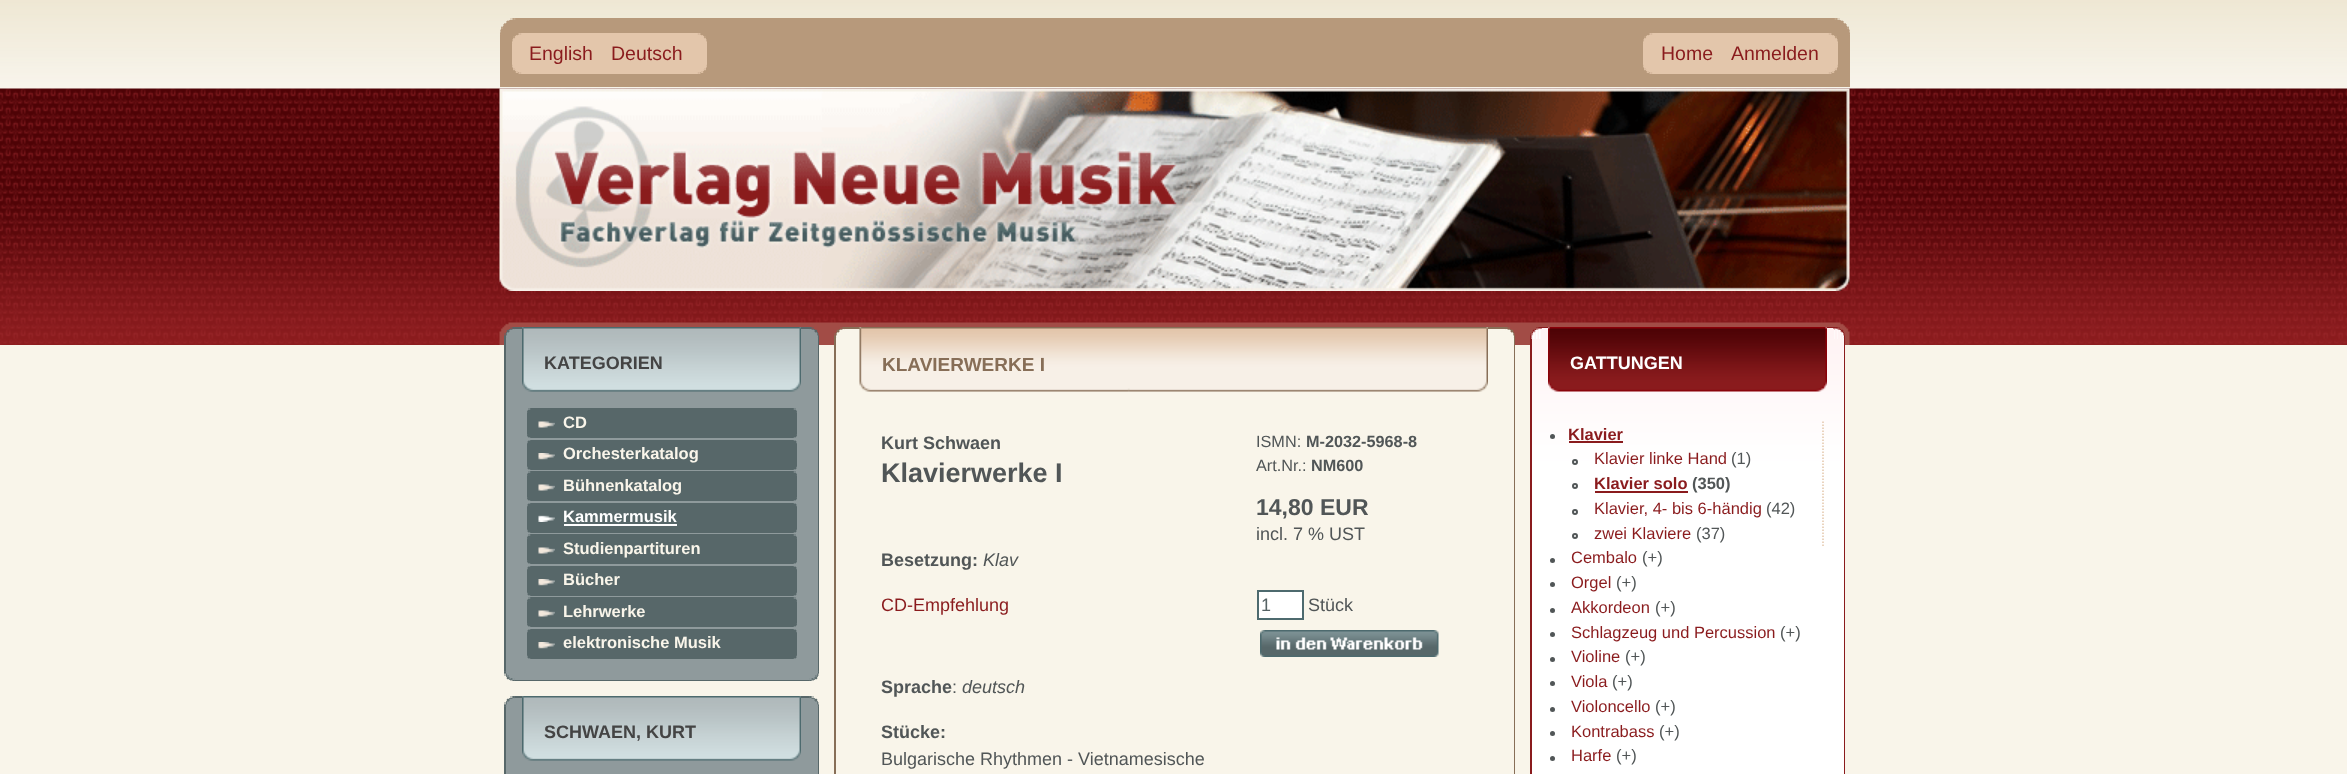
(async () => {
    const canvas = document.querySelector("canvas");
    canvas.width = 2347;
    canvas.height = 774;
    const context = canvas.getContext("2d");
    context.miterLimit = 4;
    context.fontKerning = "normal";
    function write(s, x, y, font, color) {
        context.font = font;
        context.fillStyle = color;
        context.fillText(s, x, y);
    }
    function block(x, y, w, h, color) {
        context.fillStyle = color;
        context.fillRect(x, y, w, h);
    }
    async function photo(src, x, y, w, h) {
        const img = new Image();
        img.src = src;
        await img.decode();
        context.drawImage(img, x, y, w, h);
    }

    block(0, 0, 2347, 774, "rgb(249, 245, 234)");
    block(818, 705, 1, 2, "rgb(98, 113, 114)");
    block(816, 701, 2, 1, "rgb(121, 133, 132)");
    block(816, 699, 2, 2, "rgb(218, 218, 209)");
    block(815, 700, 2, 1, "rgb(98, 113, 114)");
    block(816, 699, 1, 2, "rgb(96, 111, 112)");
    block(813, 698, 2, 1, "rgb(121, 133, 132)");
    block(810, 696, 2, 2, "rgb(132, 143, 141)");
    block(504, 706, 2, 1, "rgb(98, 113, 114)");
    block(506, 701, 2, 1, "rgb(121, 133, 132)");
    block(506, 699, 2, 2, "rgb(218, 218, 209)");
    block(507, 700, 2, 1, "rgb(98, 113, 114)");
    block(507, 699, 1, 2, "rgb(96, 111, 112)");
    block(509, 698, 2, 1, "rgb(121, 133, 132)");
    block(512, 696, 2, 2, "rgb(132, 143, 141)");
    block(818, 671, 1, 2, "rgb(98, 113, 114)");
    block(816, 676, 2, 1, "rgb(121, 133, 132)");
    block(816, 677, 2, 2, "rgb(218, 218, 209)");
    block(815, 677, 2, 1, "rgb(98, 113, 114)");
    block(816, 677, 1, 2, "rgb(96, 111, 112)");
    block(813, 679, 2, 1, "rgb(121, 133, 132)");
    block(810, 680, 2, 1, "rgb(132, 143, 141)");
    block(504, 671, 2, 1, "rgb(98, 113, 114)");
    block(506, 676, 2, 1, "rgb(121, 133, 132)");
    block(506, 677, 2, 2, "rgb(218, 218, 209)");
    block(507, 677, 2, 1, "rgb(98, 113, 114)");
    block(507, 677, 1, 2, "rgb(96, 111, 112)");
    block(509, 679, 2, 1, "rgb(121, 133, 132)");
    block(512, 680, 2, 1, "rgb(132, 143, 141)");
    await photo("media/1.png", 0, 0, 2347, 89);
    block(510, 18, 2, 2, "rgb(224, 210, 189)");
    block(513, 18, 2, 2, "rgb(193, 168, 140)");
    block(512, 18, 2, 2, "rgba(183, 153, 123, 0.6)");
    block(516, 18, 2, 2, "rgb(183, 153, 123)");
    block(515, 18, 2, 2, "rgba(183, 153, 123, 0.95)");
    block(507, 20, 2, 1, "rgb(221, 207, 186)");
    block(510, 20, 8, 16, "rgb(183, 153, 123)");
    block(509, 20, 2, 1, "rgba(183, 153, 123, 0.82)");
    block(507, 21, 3, 15, "rgb(183, 153, 123)");
    block(506, 21, 2, 2, "rgba(183, 153, 123, 0.6)");
    block(504, 23, 2, 1, "rgb(201, 179, 153)");
    block(506, 23, 1, 13, "rgb(183, 153, 123)");
    block(504, 24, 2, 12, "rgb(183, 153, 123)");
    block(503, 24, 2, 2, "rgba(183, 153, 123, 0.6)");
    block(501, 26, 2, 2, "rgb(221, 208, 187)");
    block(503, 26, 1, 10, "rgb(183, 153, 123)");
    block(501, 27, 2, 2, "rgba(183, 153, 123, 0.82)");
    block(501, 29, 2, 7, "rgb(183, 153, 123)");
    block(500, 29, 2, 2, "rgba(183, 153, 123, 0.3)");
    block(500, 30, 2, 2, "rgba(183, 153, 123, 0.6)");
    block(500, 32, 2, 2, "rgba(183, 153, 123, 0.82)");
    block(500, 33, 2, 2, "rgba(183, 153, 123, 0.95)");
    block(500, 35, 2, 1, "rgb(183, 153, 123)");
    block(518, 18, 1314, 18, "rgb(183, 153, 123)");
    block(1832, 18, 2, 2, "rgb(183, 153, 123)");
    block(1833, 18, 2, 2, "rgba(183, 153, 123, 0.95)");
    block(1835, 18, 2, 2, "rgb(193, 168, 140)");
    block(1836, 18, 2, 2, "rgba(183, 153, 123, 0.6)");
    block(1838, 18, 2, 2, "rgb(224, 210, 189)");
    block(1832, 20, 8, 16, "rgb(183, 153, 123)");
    block(1839, 20, 2, 1, "rgba(183, 153, 123, 0.82)");
    block(1841, 20, 2, 1, "rgb(221, 207, 186)");
    block(1840, 21, 3, 15, "rgb(183, 153, 123)");
    block(1842, 21, 2, 2, "rgba(183, 153, 123, 0.6)");
    block(1843, 23, 1, 13, "rgb(183, 153, 123)");
    block(1844, 23, 2, 1, "rgb(201, 179, 153)");
    block(1844, 24, 2, 12, "rgb(183, 153, 123)");
    block(1845, 24, 2, 2, "rgba(183, 153, 123, 0.6)");
    block(1846, 26, 1, 10, "rgb(183, 153, 123)");
    block(1847, 26, 2, 2, "rgb(221, 208, 187)");
    block(1847, 27, 2, 2, "rgba(183, 153, 123, 0.82)");
    block(1847, 29, 2, 7, "rgb(183, 153, 123)");
    block(1848, 29, 2, 2, "rgba(183, 153, 123, 0.3)");
    block(1848, 30, 2, 2, "rgba(183, 153, 123, 0.6)");
    block(1848, 32, 2, 2, "rgba(183, 153, 123, 0.82)");
    block(1848, 33, 2, 2, "rgba(183, 153, 123, 0.95)");
    block(1848, 35, 2, 1, "rgb(183, 153, 123)");
    block(500, 36, 1350, 51, "rgb(183, 153, 123)");
    block(519, 33, 2, 2, "rgb(215, 185, 158)");
    block(518, 33, 2, 2, "rgba(227, 198, 171, 0.38)");
    block(522, 33, 2, 2, "rgb(227, 198, 171)");
    block(521, 33, 2, 2, "rgba(227, 198, 171, 0.93)");
    block(516, 35, 2, 1, "rgb(218, 189, 161)");
    block(516, 36, 2, 9, "rgb(227, 198, 171)");
    block(515, 35, 2, 2, "rgba(227, 198, 171, 0.19)");
    block(513, 36, 2, 2, "rgb(191, 162, 132)");
    block(518, 35, 6, 10, "rgb(227, 198, 171)");
    block(515, 36, 2, 2, "rgba(227, 198, 171, 0.93)");
    block(513, 38, 2, 1, "rgb(218, 189, 161)");
    block(515, 38, 1, 7, "rgb(227, 198, 171)");
    block(513, 39, 2, 6, "rgb(227, 198, 171)");
    block(512, 39, 2, 2, "rgba(227, 198, 171, 0.38)");
    block(512, 41, 2, 2, "rgba(227, 198, 171, 0.72)");
    block(512, 42, 2, 2, "rgba(227, 198, 171, 0.93)");
    block(512, 44, 2, 1, "rgb(227, 198, 171)");
    block(524, 33, 171, 12, "rgb(227, 198, 171)");
    block(695, 33, 2, 2, "rgb(227, 198, 171)");
    block(696, 33, 2, 2, "rgba(227, 198, 171, 0.93)");
    block(698, 33, 2, 2, "rgb(215, 185, 158)");
    block(699, 33, 2, 2, "rgba(227, 198, 171, 0.38)");
    block(695, 35, 6, 10, "rgb(227, 198, 171)");
    block(701, 35, 2, 1, "rgb(218, 189, 161)");
    block(701, 36, 2, 9, "rgb(227, 198, 171)");
    block(702, 35, 2, 2, "rgba(227, 198, 171, 0.19)");
    block(702, 36, 2, 2, "rgba(227, 198, 171, 0.93)");
    block(704, 36, 2, 2, "rgb(191, 162, 132)");
    block(703, 38, 1, 7, "rgb(227, 198, 171)");
    block(704, 38, 2, 1, "rgb(218, 189, 161)");
    block(704, 39, 2, 6, "rgb(227, 198, 171)");
    block(705, 39, 2, 2, "rgba(227, 198, 171, 0.38)");
    block(705, 41, 2, 2, "rgba(227, 198, 171, 0.72)");
    block(705, 42, 2, 2, "rgba(227, 198, 171, 0.93)");
    block(705, 44, 2, 1, "rgb(227, 198, 171)");
    block(512, 45, 195, 17, "rgb(227, 198, 171)");
    block(524, 62, 171, 12, "rgb(227, 198, 171)");
    write("English", 529, 60, "19.5px Liberation Sans", "rgb(138, 27, 29)");
    write("Deutsch", 611, 60, "19.5px Liberation Sans", "rgb(138, 27, 29)");
    block(513, 62, 2, 6, "rgb(227, 198, 171)");
    block(512, 62, 2, 2, "rgb(227, 198, 171)");
    block(515, 62, 1, 7, "rgb(227, 198, 171)");
    block(516, 62, 2, 9, "rgb(227, 198, 171)");
    block(518, 62, 6, 10, "rgb(227, 198, 171)");
    block(512, 64, 2, 1, "rgba(227, 198, 171, 0.93)");
    block(512, 66, 2, 2, "rgba(227, 198, 171, 0.38)");
    block(512, 65, 2, 2, "rgba(227, 198, 171, 0.72)");
    block(513, 69, 2, 2, "rgb(191, 162, 132)");
    block(513, 68, 2, 2, "rgba(227, 198, 171, 0.79)");
    block(515, 69, 2, 2, "rgba(227, 198, 171, 0.93)");
    block(516, 71, 2, 2, "rgb(218, 189, 161)");
    block(515, 71, 2, 2, "rgba(227, 198, 171, 0.19)");
    block(519, 72, 2, 2, "rgb(215, 185, 158)");
    block(518, 72, 2, 2, "rgba(227, 198, 171, 0.38)");
    block(522, 72, 2, 2, "rgb(227, 198, 171)");
    block(521, 72, 2, 2, "rgba(227, 198, 171, 0.93)");
    block(695, 62, 6, 10, "rgb(227, 198, 171)");
    block(701, 62, 2, 9, "rgb(227, 198, 171)");
    block(703, 62, 1, 7, "rgb(227, 198, 171)");
    block(704, 62, 2, 6, "rgb(227, 198, 171)");
    block(705, 62, 2, 2, "rgb(227, 198, 171)");
    block(705, 64, 2, 1, "rgba(227, 198, 171, 0.93)");
    block(705, 66, 2, 2, "rgba(227, 198, 171, 0.38)");
    block(705, 65, 2, 2, "rgba(227, 198, 171, 0.72)");
    block(702, 69, 2, 2, "rgba(227, 198, 171, 0.93)");
    block(704, 69, 2, 2, "rgb(191, 162, 132)");
    block(704, 68, 2, 2, "rgba(227, 198, 171, 0.79)");
    block(701, 71, 2, 2, "rgb(218, 189, 161)");
    block(695, 72, 2, 2, "rgb(227, 198, 171)");
    block(702, 71, 2, 2, "rgba(227, 198, 171, 0.19)");
    block(696, 72, 2, 2, "rgba(227, 198, 171, 0.93)");
    block(698, 72, 2, 2, "rgb(215, 185, 158)");
    block(699, 72, 2, 2, "rgba(227, 198, 171, 0.38)");
    block(1650, 33, 2, 2, "rgb(215, 185, 158)");
    block(1649, 33, 2, 2, "rgba(227, 198, 171, 0.38)");
    block(1653, 33, 2, 2, "rgb(227, 198, 171)");
    block(1652, 33, 2, 2, "rgba(227, 198, 171, 0.93)");
    block(1647, 35, 2, 1, "rgb(218, 189, 161)");
    block(1647, 36, 2, 9, "rgb(227, 198, 171)");
    block(1646, 35, 2, 2, "rgba(227, 198, 171, 0.19)");
    block(1644, 36, 2, 2, "rgb(191, 162, 132)");
    block(1649, 35, 6, 10, "rgb(227, 198, 171)");
    block(1646, 36, 2, 2, "rgba(227, 198, 171, 0.93)");
    block(1644, 38, 2, 1, "rgb(218, 189, 161)");
    block(1646, 38, 1, 7, "rgb(227, 198, 171)");
    block(1644, 39, 2, 6, "rgb(227, 198, 171)");
    block(1643, 39, 2, 2, "rgba(227, 198, 171, 0.38)");
    block(1643, 41, 2, 2, "rgba(227, 198, 171, 0.72)");
    block(1643, 42, 2, 2, "rgba(227, 198, 171, 0.93)");
    block(1643, 44, 2, 1, "rgb(227, 198, 171)");
    block(1655, 33, 171, 12, "rgb(227, 198, 171)");
    block(1826, 33, 2, 2, "rgb(227, 198, 171)");
    block(1827, 33, 2, 2, "rgba(227, 198, 171, 0.93)");
    block(1829, 33, 2, 2, "rgb(215, 185, 158)");
    block(1830, 33, 2, 2, "rgba(227, 198, 171, 0.38)");
    block(1826, 35, 6, 10, "rgb(227, 198, 171)");
    block(1832, 35, 2, 1, "rgb(218, 189, 161)");
    block(1832, 36, 2, 9, "rgb(227, 198, 171)");
    block(1833, 35, 2, 2, "rgba(227, 198, 171, 0.19)");
    block(1833, 36, 2, 2, "rgba(227, 198, 171, 0.93)");
    block(1835, 36, 2, 2, "rgb(191, 162, 132)");
    block(1834, 38, 1, 7, "rgb(227, 198, 171)");
    block(1835, 38, 2, 1, "rgb(218, 189, 161)");
    block(1835, 39, 2, 6, "rgb(227, 198, 171)");
    block(1836, 39, 2, 2, "rgba(227, 198, 171, 0.38)");
    block(1836, 41, 2, 2, "rgba(227, 198, 171, 0.72)");
    block(1836, 42, 2, 2, "rgba(227, 198, 171, 0.93)");
    block(1836, 44, 2, 1, "rgb(227, 198, 171)");
    block(1643, 45, 195, 17, "rgb(227, 198, 171)");
    write("Home", 1661, 60, "19.5px Liberation Sans", "rgb(138, 27, 29)");
    write("Anmelden", 1731, 60, "19.5px Liberation Sans", "rgb(138, 27, 29)");
    block(1644, 62, 2, 6, "rgb(227, 198, 171)");
    block(1643, 62, 2, 2, "rgb(227, 198, 171)");
    block(1646, 62, 1, 7, "rgb(227, 198, 171)");
    block(1647, 62, 2, 9, "rgb(227, 198, 171)");
    block(1649, 62, 6, 10, "rgb(227, 198, 171)");
    block(1643, 64, 2, 1, "rgba(227, 198, 171, 0.93)");
    block(1643, 66, 2, 2, "rgba(227, 198, 171, 0.38)");
    block(1643, 65, 2, 2, "rgba(227, 198, 171, 0.72)");
    block(1644, 69, 2, 2, "rgb(191, 162, 132)");
    block(1644, 68, 2, 2, "rgba(227, 198, 171, 0.79)");
    block(1646, 69, 2, 2, "rgba(227, 198, 171, 0.93)");
    block(1647, 71, 2, 2, "rgb(218, 189, 161)");
    block(1646, 71, 2, 2, "rgba(227, 198, 171, 0.19)");
    block(1650, 72, 2, 2, "rgb(215, 185, 158)");
    block(1649, 72, 2, 2, "rgba(227, 198, 171, 0.38)");
    block(1653, 72, 2, 2, "rgb(227, 198, 171)");
    block(1652, 72, 2, 2, "rgba(227, 198, 171, 0.93)");
    block(1655, 62, 171, 12, "rgb(227, 198, 171)");
    block(1826, 62, 6, 10, "rgb(227, 198, 171)");
    block(1832, 62, 2, 9, "rgb(227, 198, 171)");
    block(1834, 62, 1, 7, "rgb(227, 198, 171)");
    block(1835, 62, 2, 6, "rgb(227, 198, 171)");
    block(1836, 62, 2, 2, "rgb(227, 198, 171)");
    block(1836, 64, 2, 1, "rgba(227, 198, 171, 0.93)");
    block(1836, 66, 2, 2, "rgba(227, 198, 171, 0.38)");
    block(1836, 65, 2, 2, "rgba(227, 198, 171, 0.72)");
    block(1833, 69, 2, 2, "rgba(227, 198, 171, 0.93)");
    block(1835, 69, 2, 2, "rgb(191, 162, 132)");
    block(1835, 68, 2, 2, "rgba(227, 198, 171, 0.79)");
    block(1832, 71, 2, 2, "rgb(218, 189, 161)");
    block(1826, 72, 2, 2, "rgb(227, 198, 171)");
    block(1833, 71, 2, 2, "rgba(227, 198, 171, 0.19)");
    block(1827, 72, 2, 2, "rgba(227, 198, 171, 0.93)");
    block(1829, 72, 2, 2, "rgb(215, 185, 158)");
    block(1830, 72, 2, 2, "rgba(227, 198, 171, 0.38)");
    await photo("media/38.png", 0, 88, 2347, 257);
    await photo("media/2.png", 499, 88, 1351, 203);
    await photo("media/3.png", 499, 322, 1351, 23);
    block(510, 327, 2, 2, "rgb(133, 86, 83)");
    block(513, 327, 2, 2, "rgb(92, 101, 103)");
    block(512, 327, 2, 2, "rgba(87, 103, 105, 0.72)");
    block(515, 327, 1, 2, "rgb(87, 103, 105)");
    block(507, 329, 2, 2, "rgb(148, 81, 77)");
    block(509, 329, 2, 1, "rgba(87, 103, 105, 0.79)");
    block(510, 329, 2, 1, "rgb(103, 118, 120)");
    block(512, 329, 2, 1, "rgb(87, 103, 105)");
    block(513, 329, 2, 1, "rgb(138, 150, 152)");
    block(512, 329, 2, 1, "rgba(143, 154, 156, 0.68)");
    block(507, 330, 2, 2, "rgba(87, 103, 105, 0.93)");
    block(506, 330, 2, 2, "rgba(87, 103, 105, 0.19)");
    block(515, 329, 1, 10, "rgb(143, 154, 156)");
    block(509, 330, 2, 2, "rgb(87, 103, 105)");
    block(510, 330, 5, 9, "rgb(143, 154, 156)");
    block(509, 330, 2, 2, "rgba(143, 154, 156, 0.6)");
    block(506, 332, 2, 1, "rgba(87, 103, 105, 0.79)");
    block(504, 333, 2, 2, "rgb(133, 86, 83)");
    block(507, 332, 2, 1, "rgb(120, 133, 135)");
    block(509, 332, 1, 7, "rgb(143, 154, 156)");
    block(506, 333, 2, 5, "rgb(87, 103, 105)");
    block(507, 333, 2, 6, "rgb(143, 154, 156)");
    block(506, 333, 2, 2, "rgba(143, 154, 156, 0.29)");
    block(504, 335, 2, 2, "rgb(108, 95, 95)");
    block(504, 336, 2, 2, "rgba(87, 103, 105, 0.93)");
    block(506, 335, 2, 2, "rgba(143, 154, 156, 0.68)");
    block(506, 336, 2, 2, "rgba(143, 154, 156, 0.92)");
    block(504, 338, 2, 1, "rgb(87, 103, 105)");
    block(506, 338, 2, 1, "rgb(143, 154, 156)");
    block(516, 327, 293, 2, "rgb(87, 103, 105)");
    block(809, 327, 2, 2, "rgb(92, 101, 103)");
    block(810, 327, 2, 2, "rgba(87, 103, 105, 0.72)");
    block(812, 327, 2, 2, "rgb(133, 86, 83)");
    block(516, 329, 293, 10, "rgb(143, 154, 156)");
    block(810, 329, 2, 1, "rgb(87, 103, 105)");
    block(809, 329, 2, 1, "rgb(138, 150, 152)");
    block(810, 329, 2, 1, "rgba(143, 154, 156, 0.68)");
    block(813, 329, 2, 1, "rgba(87, 103, 105, 0.79)");
    block(812, 329, 2, 1, "rgb(103, 118, 120)");
    block(815, 329, 2, 2, "rgb(148, 81, 77)");
    block(813, 330, 2, 2, "rgb(87, 103, 105)");
    block(809, 330, 5, 9, "rgb(143, 154, 156)");
    block(813, 330, 2, 2, "rgba(143, 154, 156, 0.6)");
    block(815, 330, 2, 2, "rgba(87, 103, 105, 0.93)");
    block(816, 330, 2, 2, "rgba(87, 103, 105, 0.19)");
    block(814, 332, 1, 7, "rgb(143, 154, 156)");
    block(816, 332, 2, 1, "rgba(87, 103, 105, 0.79)");
    block(815, 332, 2, 1, "rgb(120, 133, 135)");
    block(816, 333, 2, 5, "rgb(87, 103, 105)");
    block(815, 333, 2, 6, "rgb(143, 154, 156)");
    block(816, 333, 2, 2, "rgba(143, 154, 156, 0.29)");
    block(818, 333, 1, 2, "rgb(133, 86, 83)");
    block(816, 335, 2, 2, "rgba(143, 154, 156, 0.68)");
    block(818, 335, 1, 2, "rgb(108, 95, 95)");
    block(816, 336, 2, 2, "rgba(143, 154, 156, 0.92)");
    block(818, 336, 1, 2, "rgba(87, 103, 105, 0.93)");
    block(816, 338, 2, 1, "rgb(143, 154, 156)");
    block(818, 338, 1, 1, "rgb(87, 103, 105)");
    block(504, 339, 2, 332, "rgb(87, 103, 105)");
    block(506, 669, 2, 2, "rgb(143, 154, 156)");
    block(508, 669, 1, 6, "rgb(143, 154, 156)");
    block(506, 671, 2, 1, "rgb(139, 150, 152)");
    block(506, 672, 2, 1, "rgb(142, 153, 155)");
    block(506, 673, 2, 1, "rgb(125, 138, 140)");
    block(506, 674, 2, 2, "rgb(103, 118, 120)");
    block(507, 671, 1, 4, "rgb(143, 154, 156)");
    block(509, 669, 2, 8, "rgb(143, 154, 156)");
    block(511, 669, 4, 9, "rgb(143, 154, 156)");
    block(515, 669, 1, 11, "rgb(143, 154, 156)");
    block(504, 673, 2, 1, "rgb(132, 143, 141)");
    block(504, 672, 2, 1, "rgb(90, 106, 108)");
    block(504, 674, 2, 2, "rgb(187, 190, 184)");
    block(507, 675, 2, 2, "rgb(120, 133, 135)");
    block(507, 675, 1, 1, "rgb(127, 139, 141)");
    block(509, 677, 2, 2, "rgb(121, 134, 136)");
    block(510, 677, 1, 1, "rgb(143, 154, 156)");
    block(507, 679, 2, 1, "rgb(218, 218, 210)");
    block(507, 678, 2, 1, "rgb(96, 111, 112)");
    block(510, 678, 2, 2, "rgb(103, 118, 120)");
    block(510, 678, 1, 1, "rgb(127, 140, 142)");
    block(512, 678, 2, 2, "rgb(125, 138, 140)");
    block(513, 678, 2, 2, "rgb(138, 150, 152)");
    block(513, 678, 1, 2, "rgb(141, 153, 155)");
    block(510, 680, 2, 1, "rgb(187, 190, 184)");
    block(513, 680, 2, 1, "rgb(99, 113, 114)");
    block(513, 680, 1, 1, "rgb(90, 106, 108)");
    block(515, 680, 1, 1, "rgb(87, 103, 105)");
    block(506, 339, 312, 330, "rgb(143, 154, 156)");
    block(795, 655, 2, 1, "rgb(96, 111, 113)");
    block(795, 656, 2, 2, "rgb(121, 134, 136)");
    block(792, 658, 2, 1, "rgb(96, 111, 113)");
    block(527, 655, 2, 1, "rgb(96, 111, 113)");
    block(527, 656, 2, 2, "rgb(121, 134, 136)");
    block(530, 658, 2, 1, "rgb(96, 111, 113)");
    block(795, 632, 2, 1, "rgb(96, 111, 113)");
    block(795, 630, 2, 2, "rgb(121, 134, 136)");
    block(792, 629, 2, 1, "rgb(96, 111, 113)");
    block(527, 632, 2, 1, "rgb(96, 111, 113)");
    block(527, 630, 2, 2, "rgb(121, 134, 136)");
    block(530, 629, 2, 1, "rgb(96, 111, 113)");
    block(795, 623, 2, 1, "rgb(96, 111, 113)");
    block(795, 625, 2, 1, "rgb(121, 134, 136)");
    block(795, 624, 2, 1, "rgb(92, 108, 110)");
    block(792, 626, 2, 1, "rgb(96, 111, 113)");
    block(527, 623, 2, 1, "rgb(96, 111, 113)");
    block(527, 625, 2, 1, "rgb(121, 134, 136)");
    block(527, 624, 2, 1, "rgb(92, 108, 110)");
    block(530, 626, 2, 1, "rgb(96, 111, 113)");
    block(795, 601, 2, 1, "rgb(96, 111, 113)");
    block(795, 599, 2, 1, "rgb(121, 134, 136)");
    block(795, 600, 2, 1, "rgb(92, 108, 110)");
    block(792, 597, 2, 2, "rgb(96, 111, 113)");
    block(527, 601, 2, 1, "rgb(96, 111, 113)");
    block(527, 599, 2, 1, "rgb(121, 134, 136)");
    block(527, 600, 2, 1, "rgb(92, 108, 110)");
    block(530, 597, 2, 2, "rgb(96, 111, 113)");
    block(795, 592, 2, 1, "rgb(96, 111, 113)");
    block(795, 593, 2, 2, "rgb(121, 134, 136)");
    block(792, 595, 2, 1, "rgb(96, 111, 113)");
    block(527, 592, 2, 1, "rgb(96, 111, 113)");
    block(527, 593, 2, 2, "rgb(121, 134, 136)");
    block(530, 595, 2, 1, "rgb(96, 111, 113)");
    block(795, 569, 2, 1, "rgb(96, 111, 113)");
    block(795, 567, 2, 2, "rgb(121, 134, 136)");
    block(792, 566, 2, 1, "rgb(96, 111, 113)");
    block(527, 569, 2, 1, "rgb(96, 111, 113)");
    block(527, 567, 2, 2, "rgb(121, 134, 136)");
    block(530, 566, 2, 1, "rgb(96, 111, 113)");
    block(795, 560, 2, 1, "rgb(96, 111, 113)");
    block(795, 562, 2, 1, "rgb(121, 134, 136)");
    block(795, 561, 2, 1, "rgb(92, 108, 110)");
    block(792, 563, 2, 1, "rgb(96, 111, 113)");
    block(527, 560, 2, 1, "rgb(96, 111, 113)");
    block(527, 562, 2, 1, "rgb(121, 134, 136)");
    block(527, 561, 2, 1, "rgb(92, 108, 110)");
    block(530, 563, 2, 1, "rgb(96, 111, 113)");
    block(795, 538, 2, 1, "rgb(96, 111, 113)");
    block(795, 536, 2, 1, "rgb(121, 134, 136)");
    block(795, 537, 2, 1, "rgb(92, 108, 110)");
    block(792, 534, 2, 2, "rgb(96, 111, 113)");
    block(527, 538, 2, 1, "rgb(96, 111, 113)");
    block(527, 536, 2, 1, "rgb(121, 134, 136)");
    block(527, 537, 2, 1, "rgb(92, 108, 110)");
    block(530, 534, 2, 2, "rgb(96, 111, 113)");
    block(795, 529, 2, 1, "rgb(96, 111, 113)");
    block(795, 530, 2, 2, "rgb(121, 134, 136)");
    block(792, 532, 2, 1, "rgb(96, 111, 113)");
    block(527, 529, 2, 1, "rgb(96, 111, 113)");
    block(527, 530, 2, 2, "rgb(121, 134, 136)");
    block(530, 532, 2, 1, "rgb(96, 111, 113)");
    block(795, 506, 2, 1, "rgb(96, 111, 113)");
    block(795, 504, 2, 2, "rgb(121, 134, 136)");
    block(792, 503, 2, 1, "rgb(96, 111, 113)");
    block(527, 506, 2, 1, "rgb(96, 111, 113)");
    block(527, 504, 2, 2, "rgb(121, 134, 136)");
    block(530, 503, 2, 1, "rgb(96, 111, 113)");
    block(795, 497, 2, 1, "rgb(96, 111, 113)");
    block(795, 499, 2, 1, "rgb(121, 134, 136)");
    block(795, 498, 2, 1, "rgb(92, 108, 110)");
    block(792, 500, 2, 1, "rgb(96, 111, 113)");
    block(527, 497, 2, 1, "rgb(96, 111, 113)");
    block(527, 499, 2, 1, "rgb(121, 134, 136)");
    block(527, 498, 2, 1, "rgb(92, 108, 110)");
    block(530, 500, 2, 1, "rgb(96, 111, 113)");
    block(795, 475, 2, 1, "rgb(96, 111, 113)");
    block(795, 473, 2, 1, "rgb(121, 134, 136)");
    block(795, 474, 2, 1, "rgb(92, 108, 110)");
    block(792, 471, 2, 2, "rgb(96, 111, 113)");
    block(527, 475, 2, 1, "rgb(96, 111, 113)");
    block(527, 473, 2, 1, "rgb(121, 134, 136)");
    block(527, 474, 2, 1, "rgb(92, 108, 110)");
    block(530, 471, 2, 2, "rgb(96, 111, 113)");
    block(795, 466, 2, 1, "rgb(96, 111, 113)");
    block(795, 467, 2, 2, "rgb(121, 134, 136)");
    block(792, 469, 2, 1, "rgb(96, 111, 113)");
    block(527, 466, 2, 1, "rgb(96, 111, 113)");
    block(527, 467, 2, 2, "rgb(121, 134, 136)");
    block(530, 469, 2, 1, "rgb(96, 111, 113)");
    block(795, 443, 2, 1, "rgb(96, 111, 113)");
    block(795, 441, 2, 2, "rgb(121, 134, 136)");
    block(792, 440, 2, 1, "rgb(96, 111, 113)");
    block(527, 443, 2, 1, "rgb(96, 111, 113)");
    block(527, 441, 2, 2, "rgb(121, 134, 136)");
    block(530, 440, 2, 1, "rgb(96, 111, 113)");
    block(795, 434, 2, 1, "rgb(96, 111, 113)");
    block(795, 436, 2, 1, "rgb(121, 134, 136)");
    block(795, 435, 2, 1, "rgb(92, 108, 110)");
    block(792, 437, 2, 1, "rgb(96, 111, 113)");
    block(527, 434, 2, 1, "rgb(96, 111, 113)");
    block(527, 436, 2, 1, "rgb(121, 134, 136)");
    block(527, 435, 2, 1, "rgb(92, 108, 110)");
    block(530, 437, 2, 1, "rgb(96, 111, 113)");
    block(795, 412, 2, 1, "rgb(96, 111, 113)");
    block(795, 410, 2, 1, "rgb(121, 134, 136)");
    block(795, 411, 2, 1, "rgb(92, 108, 110)");
    block(792, 408, 2, 2, "rgb(96, 111, 113)");
    block(527, 412, 2, 1, "rgb(96, 111, 113)");
    block(527, 410, 2, 1, "rgb(121, 134, 136)");
    block(527, 411, 2, 1, "rgb(92, 108, 110)");
    block(530, 408, 2, 2, "rgb(96, 111, 113)");
    block(818, 339, 1, 332, "rgb(87, 103, 105)");
    block(516, 669, 293, 11, "rgb(143, 154, 156)");
    block(809, 669, 4, 9, "rgb(143, 154, 156)");
    block(813, 669, 2, 8, "rgb(143, 154, 156)");
    block(815, 669, 1, 6, "rgb(143, 154, 156)");
    block(816, 671, 2, 1, "rgb(139, 150, 152)");
    block(816, 672, 2, 1, "rgb(142, 153, 155)");
    block(816, 673, 2, 1, "rgb(125, 138, 140)");
    block(816, 674, 2, 2, "rgb(103, 118, 120)");
    block(816, 671, 1, 4, "rgb(143, 154, 156)");
    block(816, 669, 2, 2, "rgb(143, 154, 156)");
    block(818, 672, 1, 2, "rgb(132, 143, 141)");
    block(818, 672, 1, 1, "rgb(90, 106, 108)");
    block(818, 674, 1, 2, "rgb(187, 190, 184)");
    block(815, 675, 2, 2, "rgb(120, 133, 135)");
    block(816, 675, 1, 1, "rgb(127, 139, 141)");
    block(813, 677, 2, 2, "rgb(121, 134, 136)");
    block(813, 677, 1, 1, "rgb(143, 154, 156)");
    block(810, 678, 2, 2, "rgb(125, 138, 140)");
    block(809, 678, 2, 2, "rgb(138, 150, 152)");
    block(810, 678, 1, 2, "rgb(141, 153, 155)");
    block(812, 678, 2, 2, "rgb(103, 118, 120)");
    block(813, 678, 1, 1, "rgb(127, 140, 142)");
    block(815, 679, 2, 1, "rgb(218, 218, 210)");
    block(815, 678, 2, 1, "rgb(96, 111, 112)");
    block(516, 680, 293, 1, "rgb(87, 103, 105)");
    block(809, 680, 2, 1, "rgb(99, 113, 114)");
    block(810, 680, 1, 1, "rgb(90, 106, 108)");
    block(812, 680, 2, 1, "rgb(187, 190, 184)");
    await photo("media/4.png", 522, 327, 279, 65);
    write("KATEGORIEN", 544, 369, "bold 18px Liberation Sans", "rgb(68, 68, 68)");
    block(528, 408, 2, 2, "rgb(121, 134, 136)");
    block(531, 408, 2, 2, "rgb(87, 103, 105)");
    block(528, 410, 1, 3, "rgb(87, 103, 105)");
    block(529, 410, 4, 4, "rgb(87, 103, 105)");
    block(527, 413, 2, 1, "rgb(87, 103, 105)");
    block(533, 408, 258, 6, "rgb(87, 103, 105)");
    block(791, 408, 2, 2, "rgb(87, 103, 105)");
    block(794, 408, 2, 2, "rgb(121, 134, 136)");
    block(791, 410, 4, 4, "rgb(87, 103, 105)");
    block(795, 410, 1, 3, "rgb(87, 103, 105)");
    block(795, 413, 2, 1, "rgb(87, 103, 105)");
    block(527, 414, 270, 18, "rgb(87, 103, 105)");
    await photo("media/5.png", 538, 421, 17, 7);
    write("CD", 563, 428, "bold 16.5px Liberation Sans", "rgb(249, 245, 234)");
    block(527, 432, 2, 2, "rgb(87, 103, 105)");
    block(529, 432, 4, 5, "rgb(87, 103, 105)");
    block(528, 434, 1, 3, "rgb(87, 103, 105)");
    block(528, 437, 2, 1, "rgb(121, 134, 136)");
    block(531, 437, 2, 1, "rgb(87, 103, 105)");
    block(533, 432, 258, 6, "rgb(87, 103, 105)");
    block(791, 432, 4, 5, "rgb(87, 103, 105)");
    block(795, 432, 2, 2, "rgb(87, 103, 105)");
    block(795, 434, 1, 3, "rgb(87, 103, 105)");
    block(791, 437, 2, 1, "rgb(87, 103, 105)");
    block(794, 437, 2, 1, "rgb(121, 134, 136)");
    block(528, 440, 2, 1, "rgb(121, 134, 136)");
    block(531, 440, 2, 1, "rgb(87, 103, 105)");
    block(531, 440, 1, 2, "rgb(87, 103, 105)");
    block(528, 441, 1, 4, "rgb(87, 103, 105)");
    block(529, 441, 4, 5, "rgb(87, 103, 105)");
    block(527, 444, 2, 2, "rgb(87, 103, 105)");
    block(533, 440, 258, 6, "rgb(87, 103, 105)");
    block(791, 440, 2, 1, "rgb(87, 103, 105)");
    block(792, 440, 1, 2, "rgb(87, 103, 105)");
    block(794, 440, 2, 1, "rgb(121, 134, 136)");
    block(791, 441, 4, 5, "rgb(87, 103, 105)");
    block(795, 441, 1, 4, "rgb(87, 103, 105)");
    block(795, 444, 2, 2, "rgb(87, 103, 105)");
    block(527, 446, 270, 18, "rgb(87, 103, 105)");
    await photo("media/6.png", 538, 453, 17, 7);
    write("Orchesterkatalog", 563, 459, "bold 16.5px Liberation Sans", "rgb(249, 245, 234)");
    block(528, 465, 1, 4, "rgb(87, 103, 105)");
    block(527, 464, 2, 2, "rgb(87, 103, 105)");
    block(531, 469, 2, 1, "rgb(87, 103, 105)");
    block(531, 468, 1, 2, "rgb(87, 103, 105)");
    block(529, 464, 4, 5, "rgb(87, 103, 105)");
    block(528, 469, 2, 1, "rgb(121, 134, 136)");
    block(533, 464, 258, 6, "rgb(87, 103, 105)");
    block(791, 469, 2, 1, "rgb(87, 103, 105)");
    block(792, 468, 1, 2, "rgb(87, 103, 105)");
    block(791, 464, 4, 5, "rgb(87, 103, 105)");
    block(795, 465, 1, 4, "rgb(87, 103, 105)");
    block(795, 464, 2, 2, "rgb(87, 103, 105)");
    block(794, 469, 2, 1, "rgb(121, 134, 136)");
    block(528, 471, 2, 2, "rgb(121, 134, 136)");
    block(531, 471, 2, 2, "rgb(87, 103, 105)");
    block(528, 473, 1, 3, "rgb(87, 103, 105)");
    block(529, 473, 4, 4, "rgb(87, 103, 105)");
    block(527, 476, 2, 1, "rgb(87, 103, 105)");
    block(533, 471, 258, 6, "rgb(87, 103, 105)");
    block(791, 471, 2, 2, "rgb(87, 103, 105)");
    block(794, 471, 2, 2, "rgb(121, 134, 136)");
    block(791, 473, 4, 4, "rgb(87, 103, 105)");
    block(795, 473, 1, 3, "rgb(87, 103, 105)");
    block(795, 476, 2, 1, "rgb(87, 103, 105)");
    block(527, 477, 270, 18, "rgb(87, 103, 105)");
    await photo("media/5.png", 538, 484, 17, 7);
    write("Bühnenkatalog", 563, 491, "bold 16.5px Liberation Sans", "rgb(249, 245, 234)");
    block(527, 495, 2, 2, "rgb(87, 103, 105)");
    block(529, 495, 4, 5, "rgb(87, 103, 105)");
    block(528, 497, 1, 3, "rgb(87, 103, 105)");
    block(528, 500, 2, 1, "rgb(121, 134, 136)");
    block(531, 500, 2, 1, "rgb(87, 103, 105)");
    block(533, 495, 258, 6, "rgb(87, 103, 105)");
    block(791, 495, 4, 5, "rgb(87, 103, 105)");
    block(795, 495, 2, 2, "rgb(87, 103, 105)");
    block(795, 497, 1, 3, "rgb(87, 103, 105)");
    block(791, 500, 2, 1, "rgb(87, 103, 105)");
    block(794, 500, 2, 1, "rgb(121, 134, 136)");
    block(528, 503, 2, 1, "rgb(121, 134, 136)");
    block(531, 503, 2, 1, "rgb(87, 103, 105)");
    block(531, 503, 1, 2, "rgb(87, 103, 105)");
    block(528, 504, 1, 4, "rgb(87, 103, 105)");
    block(529, 504, 4, 5, "rgb(87, 103, 105)");
    block(527, 507, 2, 2, "rgb(87, 103, 105)");
    block(533, 503, 258, 6, "rgb(87, 103, 105)");
    block(791, 503, 2, 1, "rgb(87, 103, 105)");
    block(792, 503, 1, 2, "rgb(87, 103, 105)");
    block(794, 503, 2, 1, "rgb(121, 134, 136)");
    block(791, 504, 4, 5, "rgb(87, 103, 105)");
    block(795, 504, 1, 4, "rgb(87, 103, 105)");
    block(795, 507, 2, 2, "rgb(87, 103, 105)");
    block(527, 509, 270, 18, "rgb(87, 103, 105)");
    await photo("media/7.png", 538, 515, 17, 7);
    write("Kammermusik", 563, 522, "bold 16.5px Liberation Sans", "rgb(255, 255, 255)");
    block(564, 524, 113, 2, "rgb(255, 255, 255)");
    block(528, 528, 1, 4, "rgb(87, 103, 105)");
    block(527, 527, 2, 2, "rgb(87, 103, 105)");
    block(531, 532, 2, 1, "rgb(87, 103, 105)");
    block(531, 531, 1, 2, "rgb(87, 103, 105)");
    block(529, 527, 4, 5, "rgb(87, 103, 105)");
    block(528, 532, 2, 1, "rgb(121, 134, 136)");
    block(533, 527, 258, 6, "rgb(87, 103, 105)");
    block(791, 532, 2, 1, "rgb(87, 103, 105)");
    block(792, 531, 1, 2, "rgb(87, 103, 105)");
    block(791, 527, 4, 5, "rgb(87, 103, 105)");
    block(795, 528, 1, 4, "rgb(87, 103, 105)");
    block(795, 527, 2, 2, "rgb(87, 103, 105)");
    block(794, 532, 2, 1, "rgb(121, 134, 136)");
    block(528, 534, 2, 2, "rgb(121, 134, 136)");
    block(531, 534, 2, 2, "rgb(87, 103, 105)");
    block(528, 536, 1, 3, "rgb(87, 103, 105)");
    block(529, 536, 4, 4, "rgb(87, 103, 105)");
    block(527, 539, 2, 1, "rgb(87, 103, 105)");
    block(533, 534, 258, 6, "rgb(87, 103, 105)");
    block(791, 534, 2, 2, "rgb(87, 103, 105)");
    block(794, 534, 2, 2, "rgb(121, 134, 136)");
    block(791, 536, 4, 4, "rgb(87, 103, 105)");
    block(795, 536, 1, 3, "rgb(87, 103, 105)");
    block(795, 539, 2, 1, "rgb(87, 103, 105)");
    block(527, 540, 270, 18, "rgb(87, 103, 105)");
    await photo("media/5.png", 538, 547, 17, 7);
    write("Studienpartituren", 563, 554, "bold 16.5px Liberation Sans", "rgb(249, 245, 234)");
    block(527, 558, 2, 2, "rgb(87, 103, 105)");
    block(529, 558, 4, 5, "rgb(87, 103, 105)");
    block(528, 560, 1, 3, "rgb(87, 103, 105)");
    block(528, 563, 2, 1, "rgb(121, 134, 136)");
    block(531, 563, 2, 1, "rgb(87, 103, 105)");
    block(533, 558, 258, 6, "rgb(87, 103, 105)");
    block(791, 558, 4, 5, "rgb(87, 103, 105)");
    block(795, 558, 2, 2, "rgb(87, 103, 105)");
    block(795, 560, 1, 3, "rgb(87, 103, 105)");
    block(791, 563, 2, 1, "rgb(87, 103, 105)");
    block(794, 563, 2, 1, "rgb(121, 134, 136)");
    block(528, 566, 2, 1, "rgb(121, 134, 136)");
    block(531, 566, 2, 1, "rgb(87, 103, 105)");
    block(531, 566, 1, 2, "rgb(87, 103, 105)");
    block(528, 567, 1, 4, "rgb(87, 103, 105)");
    block(529, 567, 4, 5, "rgb(87, 103, 105)");
    block(527, 570, 2, 2, "rgb(87, 103, 105)");
    block(533, 566, 258, 6, "rgb(87, 103, 105)");
    block(791, 566, 2, 1, "rgb(87, 103, 105)");
    block(792, 566, 1, 2, "rgb(87, 103, 105)");
    block(794, 566, 2, 1, "rgb(121, 134, 136)");
    block(791, 567, 4, 5, "rgb(87, 103, 105)");
    block(795, 567, 1, 4, "rgb(87, 103, 105)");
    block(795, 570, 2, 2, "rgb(87, 103, 105)");
    block(527, 572, 270, 18, "rgb(87, 103, 105)");
    await photo("media/6.png", 538, 579, 17, 7);
    write("Bücher", 563, 585, "bold 16.5px Liberation Sans", "rgb(249, 245, 234)");
    block(528, 591, 1, 4, "rgb(87, 103, 105)");
    block(527, 590, 2, 2, "rgb(87, 103, 105)");
    block(531, 595, 2, 1, "rgb(87, 103, 105)");
    block(531, 594, 1, 2, "rgb(87, 103, 105)");
    block(529, 590, 4, 5, "rgb(87, 103, 105)");
    block(528, 595, 2, 1, "rgb(121, 134, 136)");
    block(533, 590, 258, 6, "rgb(87, 103, 105)");
    block(791, 595, 2, 1, "rgb(87, 103, 105)");
    block(792, 594, 1, 2, "rgb(87, 103, 105)");
    block(791, 590, 4, 5, "rgb(87, 103, 105)");
    block(795, 591, 1, 4, "rgb(87, 103, 105)");
    block(795, 590, 2, 2, "rgb(87, 103, 105)");
    block(794, 595, 2, 1, "rgb(121, 134, 136)");
    block(528, 597, 2, 2, "rgb(121, 134, 136)");
    block(531, 597, 2, 2, "rgb(87, 103, 105)");
    block(528, 599, 1, 3, "rgb(87, 103, 105)");
    block(529, 599, 4, 4, "rgb(87, 103, 105)");
    block(527, 602, 2, 1, "rgb(87, 103, 105)");
    block(533, 597, 258, 6, "rgb(87, 103, 105)");
    block(791, 597, 2, 2, "rgb(87, 103, 105)");
    block(794, 597, 2, 2, "rgb(121, 134, 136)");
    block(791, 599, 4, 4, "rgb(87, 103, 105)");
    block(795, 599, 1, 3, "rgb(87, 103, 105)");
    block(795, 602, 2, 1, "rgb(87, 103, 105)");
    block(527, 603, 270, 18, "rgb(87, 103, 105)");
    await photo("media/5.png", 538, 610, 17, 7);
    write("Lehrwerke", 563, 617, "bold 16.5px Liberation Sans", "rgb(249, 245, 234)");
    block(527, 621, 2, 2, "rgb(87, 103, 105)");
    block(529, 621, 4, 5, "rgb(87, 103, 105)");
    block(528, 623, 1, 3, "rgb(87, 103, 105)");
    block(528, 626, 2, 1, "rgb(121, 134, 136)");
    block(531, 626, 2, 1, "rgb(87, 103, 105)");
    block(533, 621, 258, 6, "rgb(87, 103, 105)");
    block(791, 621, 4, 5, "rgb(87, 103, 105)");
    block(795, 621, 2, 2, "rgb(87, 103, 105)");
    block(795, 623, 1, 3, "rgb(87, 103, 105)");
    block(791, 626, 2, 1, "rgb(87, 103, 105)");
    block(794, 626, 2, 1, "rgb(121, 134, 136)");
    block(528, 629, 2, 1, "rgb(121, 134, 136)");
    block(531, 629, 2, 1, "rgb(87, 103, 105)");
    block(531, 629, 1, 2, "rgb(87, 103, 105)");
    block(528, 630, 1, 4, "rgb(87, 103, 105)");
    block(529, 630, 4, 5, "rgb(87, 103, 105)");
    block(527, 633, 2, 2, "rgb(87, 103, 105)");
    block(533, 629, 258, 6, "rgb(87, 103, 105)");
    block(791, 629, 2, 1, "rgb(87, 103, 105)");
    block(792, 629, 1, 2, "rgb(87, 103, 105)");
    block(794, 629, 2, 1, "rgb(121, 134, 136)");
    block(791, 630, 4, 5, "rgb(87, 103, 105)");
    block(795, 630, 1, 4, "rgb(87, 103, 105)");
    block(795, 633, 2, 2, "rgb(87, 103, 105)");
    block(527, 635, 270, 18, "rgb(87, 103, 105)");
    await photo("media/6.png", 538, 642, 17, 7);
    write("elektronische Musik", 563, 648, "bold 16.5px Liberation Sans", "rgb(249, 245, 234)");
    block(528, 654, 1, 4, "rgb(87, 103, 105)");
    block(527, 653, 2, 2, "rgb(87, 103, 105)");
    block(531, 658, 2, 1, "rgb(87, 103, 105)");
    block(531, 657, 1, 2, "rgb(87, 103, 105)");
    block(529, 653, 4, 5, "rgb(87, 103, 105)");
    block(528, 658, 2, 1, "rgb(121, 134, 136)");
    block(533, 653, 258, 6, "rgb(87, 103, 105)");
    block(791, 658, 2, 1, "rgb(87, 103, 105)");
    block(792, 657, 1, 2, "rgb(87, 103, 105)");
    block(791, 653, 4, 5, "rgb(87, 103, 105)");
    block(795, 654, 1, 4, "rgb(87, 103, 105)");
    block(795, 653, 2, 2, "rgb(87, 103, 105)");
    block(794, 658, 2, 1, "rgb(121, 134, 136)");
    block(510, 696, 2, 2, "rgb(187, 190, 184)");
    block(513, 696, 2, 2, "rgb(99, 113, 114)");
    block(513, 696, 1, 2, "rgb(90, 106, 108)");
    block(515, 696, 1, 2, "rgb(87, 103, 105)");
    block(507, 698, 2, 1, "rgb(218, 218, 210)");
    block(507, 699, 2, 1, "rgb(96, 111, 112)");
    block(510, 698, 2, 1, "rgb(103, 118, 120)");
    block(512, 698, 2, 1, "rgb(125, 138, 140)");
    block(509, 699, 2, 2, "rgb(121, 134, 136)");
    block(513, 698, 2, 1, "rgb(138, 150, 152)");
    block(513, 698, 1, 2, "rgb(141, 153, 155)");
    block(515, 698, 1, 10, "rgb(143, 154, 156)");
    block(507, 701, 2, 1, "rgb(120, 133, 135)");
    block(510, 699, 1, 2, "rgb(143, 154, 156)");
    block(511, 699, 4, 9, "rgb(143, 154, 156)");
    block(504, 702, 2, 2, "rgb(187, 190, 184)");
    block(506, 702, 2, 2, "rgb(103, 118, 120)");
    block(509, 701, 2, 7, "rgb(143, 154, 156)");
    block(504, 704, 2, 1, "rgb(132, 143, 141)");
    block(504, 705, 2, 1, "rgb(90, 106, 108)");
    block(508, 702, 1, 6, "rgb(143, 154, 156)");
    block(506, 704, 2, 1, "rgb(125, 138, 140)");
    block(506, 706, 2, 1, "rgb(139, 150, 152)");
    block(506, 705, 2, 1, "rgb(142, 153, 155)");
    block(507, 702, 1, 5, "rgb(143, 154, 156)");
    block(504, 707, 2, 67, "rgb(87, 103, 105)");
    block(506, 707, 2, 1, "rgb(143, 154, 156)");
    block(516, 696, 293, 2, "rgb(87, 103, 105)");
    block(809, 696, 2, 2, "rgb(99, 113, 114)");
    block(810, 696, 1, 2, "rgb(90, 106, 108)");
    block(812, 696, 2, 2, "rgb(187, 190, 184)");
    block(516, 698, 293, 10, "rgb(143, 154, 156)");
    block(810, 698, 2, 1, "rgb(125, 138, 140)");
    block(809, 698, 2, 1, "rgb(138, 150, 152)");
    block(810, 698, 1, 2, "rgb(141, 153, 155)");
    block(812, 698, 2, 1, "rgb(103, 118, 120)");
    block(815, 698, 2, 1, "rgb(218, 218, 210)");
    block(815, 699, 2, 1, "rgb(96, 111, 112)");
    block(809, 699, 4, 9, "rgb(143, 154, 156)");
    block(813, 699, 2, 2, "rgb(121, 134, 136)");
    block(813, 699, 1, 2, "rgb(143, 154, 156)");
    block(813, 701, 2, 7, "rgb(143, 154, 156)");
    block(815, 701, 2, 1, "rgb(120, 133, 135)");
    block(815, 702, 1, 6, "rgb(143, 154, 156)");
    block(816, 702, 2, 2, "rgb(103, 118, 120)");
    block(816, 704, 2, 1, "rgb(125, 138, 140)");
    block(816, 706, 2, 1, "rgb(139, 150, 152)");
    block(816, 705, 2, 1, "rgb(142, 153, 155)");
    block(816, 702, 1, 5, "rgb(143, 154, 156)");
    block(818, 702, 1, 2, "rgb(187, 190, 184)");
    block(818, 704, 1, 2, "rgb(132, 143, 141)");
    block(818, 705, 1, 1, "rgb(90, 106, 108)");
    block(816, 707, 2, 1, "rgb(143, 154, 156)");
    block(818, 707, 1, 67, "rgb(87, 103, 105)");
    block(506, 708, 312, 66, "rgb(143, 154, 156)");
    await photo("media/4.png", 522, 696, 279, 65);
    write("SCHWAEN, KURT", 544, 738, "bold 18px Liberation Sans", "rgb(68, 68, 68)");
    block(840, 327, 2, 2, "rgb(152, 89, 77)");
    block(843, 327, 2, 2, "rgb(137, 108, 86)");
    block(842, 327, 2, 2, "rgba(135, 110, 87, 0.72)");
    block(845, 327, 1, 2, "rgb(135, 110, 87)");
    block(837, 329, 2, 2, "rgb(157, 82, 73)");
    block(839, 329, 2, 1, "rgba(135, 110, 87, 0.79)");
    block(840, 329, 2, 1, "rgb(168, 149, 130)");
    block(842, 329, 2, 1, "rgb(135, 110, 87)");
    block(843, 329, 2, 1, "rgb(240, 234, 222)");
    block(842, 329, 2, 1, "rgba(249, 245, 234, 0.68)");
    block(837, 330, 2, 2, "rgba(135, 110, 87, 0.93)");
    block(836, 330, 2, 2, "rgba(135, 110, 87, 0.19)");
    block(845, 329, 1, 10, "rgb(249, 245, 234)");
    block(839, 330, 2, 2, "rgb(135, 110, 87)");
    block(840, 330, 5, 9, "rgb(249, 245, 234)");
    block(839, 330, 2, 2, "rgba(249, 245, 234, 0.6)");
    block(836, 332, 2, 1, "rgba(135, 110, 87, 0.79)");
    block(834, 333, 2, 2, "rgb(152, 89, 77)");
    block(837, 332, 2, 1, "rgb(203, 191, 175)");
    block(839, 332, 1, 7, "rgb(249, 245, 234)");
    block(836, 333, 2, 5, "rgb(135, 110, 87)");
    block(837, 333, 2, 6, "rgb(249, 245, 234)");
    block(836, 333, 2, 2, "rgba(249, 245, 234, 0.29)");
    block(834, 335, 2, 2, "rgb(143, 100, 82)");
    block(834, 336, 2, 2, "rgba(135, 110, 87, 0.93)");
    block(836, 335, 2, 2, "rgba(249, 245, 234, 0.68)");
    block(836, 336, 2, 2, "rgba(249, 245, 234, 0.92)");
    block(834, 338, 2, 436, "rgb(135, 110, 87)");
    block(836, 338, 2, 1, "rgb(249, 245, 234)");
    block(846, 327, 659, 2, "rgb(135, 110, 87)");
    block(1505, 327, 2, 2, "rgb(137, 108, 86)");
    block(1506, 327, 2, 2, "rgba(135, 110, 87, 0.72)");
    block(1508, 327, 2, 2, "rgb(152, 89, 77)");
    block(846, 329, 659, 10, "rgb(249, 245, 234)");
    block(1506, 329, 2, 1, "rgb(135, 110, 87)");
    block(1505, 329, 2, 1, "rgb(240, 234, 222)");
    block(1506, 329, 2, 1, "rgba(249, 245, 234, 0.68)");
    block(1509, 329, 2, 1, "rgba(135, 110, 87, 0.79)");
    block(1508, 329, 2, 1, "rgb(168, 149, 130)");
    block(1511, 329, 2, 2, "rgb(157, 82, 73)");
    block(1509, 330, 2, 2, "rgb(135, 110, 87)");
    block(1505, 330, 5, 9, "rgb(249, 245, 234)");
    block(1509, 330, 2, 2, "rgba(249, 245, 234, 0.6)");
    block(1511, 330, 2, 2, "rgba(135, 110, 87, 0.93)");
    block(1512, 330, 2, 2, "rgba(135, 110, 87, 0.19)");
    block(1510, 332, 1, 7, "rgb(249, 245, 234)");
    block(1512, 332, 2, 1, "rgba(135, 110, 87, 0.79)");
    block(1511, 332, 2, 1, "rgb(203, 191, 175)");
    block(1512, 333, 2, 5, "rgb(135, 110, 87)");
    block(1511, 333, 2, 6, "rgb(249, 245, 234)");
    block(1512, 333, 2, 2, "rgba(249, 245, 234, 0.29)");
    block(1514, 333, 1, 2, "rgb(152, 89, 77)");
    block(1512, 335, 2, 2, "rgba(249, 245, 234, 0.68)");
    block(1514, 335, 1, 2, "rgb(143, 100, 82)");
    block(1512, 336, 2, 2, "rgba(249, 245, 234, 0.92)");
    block(1514, 336, 1, 2, "rgba(135, 110, 87, 0.93)");
    block(1512, 338, 2, 1, "rgb(249, 245, 234)");
    block(1514, 338, 1, 436, "rgb(135, 110, 87)");
    block(836, 339, 678, 6, "rgb(249, 245, 234)");
    await photo("media/8.png", 859, 327, 629, 65);
    write("KLAVIERWERKE I", 882, 371, "bold 19px Liberation Sans", "rgb(135, 110, 87)");
    write("Kurt Schwaen", 881, 449, "bold 18px Liberation Sans", "rgb(81, 86, 87)");
    write("Klavierwerke I", 881, 482, "bold 27px Liberation Sans", "rgb(81, 86, 87)");
    write("Besetzung:", 881, 566, "bold 18px Liberation Sans", "rgb(81, 86, 87)");
    write("Klav", 983, 566, "italic 18px Liberation Sans", "rgb(81, 86, 87)");
    write("CD-Empfehlung", 881, 611, "18px Liberation Sans", "rgb(138, 27, 29)");
    write("ISMN:", 1256, 447, "16.25px Liberation Sans", "rgb(81, 86, 87)");
    write("M-2032-5968-8", 1306, 447, "bold 16.25px Liberation Sans", "rgb(81, 86, 87)");
    write("Art.Nr.:", 1256, 471, "16.25px Liberation Sans", "rgb(81, 86, 87)");
    write("NM600", 1311, 471, "bold 16.25px Liberation Sans", "rgb(81, 86, 87)");
    write("14,80 EUR", 1256, 515, "bold 23px Liberation Sans", "rgb(81, 86, 87)");
    write("incl. 7 % UST", 1256, 540, "18px Liberation Sans", "rgb(81, 86, 87)");
    context.fillStyle = "rgb(255, 255, 255)";
    context.beginPath();
    context.rect(1258, 591, 45, 28);
    context.fill();
    context.strokeStyle = "rgb(77, 106, 110)";
    context.lineWidth = 2;
    context.stroke();
    write("1", 1261, 611, "18px Liberation Sans", "rgb(86, 98, 100)");
    write("Stück", 1308, 611, "18px Liberation Sans", "rgb(81, 86, 87)");
    await photo("media/9.png", 1260, 630, 179, 27);
    write("Sprache", 881, 693, "bold 18px Liberation Sans", "rgb(81, 86, 87)");
    write(":", 952, 693, "18px Liberation Sans", "rgb(81, 86, 87)");
    write("deutsch", 962, 693, "italic 18px Liberation Sans", "rgb(81, 86, 87)");
    write("Stücke:", 881, 738, "bold 18px Liberation Sans", "rgb(81, 86, 87)");
    write("Bulgarische Rhythmen - Vietnamesische", 881, 765, "18px Liberation Sans", "rgb(81, 86, 87)");
    block(1536, 327, 2, 2, "rgb(153, 57, 54)");
    block(1539, 327, 2, 2, "rgb(140, 30, 32)");
    block(1538, 327, 2, 2, "rgba(138, 27, 29, 0.72)");
    block(1541, 327, 1, 2, "rgb(138, 27, 29)");
    await photo("media/13.png", 1540, 328, 2, 2);
    block(1536, 329, 4, 1, "rgb(138, 27, 29)");
    block(1539, 329, 2, 1, "rgba(255, 255, 255, 0.92)");
    await photo("media/12.png", 1539, 328, 2, 2);
    block(1538, 329, 2, 1, "rgba(255, 255, 255, 0.68)");
    await photo("media/11.png", 1537, 328, 2, 2);
    block(1535, 329, 2, 1, "rgba(138, 27, 29, 0.79)");
    block(1536, 329, 2, 1, "rgba(255, 255, 255, 0.29)");
    await photo("media/10.png", 1536, 328, 2, 2);
    block(1533, 329, 2, 2, "rgb(157, 67, 62)");
    block(1533, 330, 2, 2, "rgba(138, 27, 29, 0.93)");
    block(1532, 330, 2, 2, "rgba(138, 27, 29, 0.19)");
    block(1535, 330, 2, 2, "rgb(138, 27, 29)");
    block(1537, 330, 1, 9, "rgb(255, 255, 255)");
    await photo("media/16.png", 1536, 330, 2, 9);
    block(1535, 330, 2, 2, "rgba(255, 255, 255, 0.6)");
    await photo("media/14.png", 1534, 330, 2, 2);
    block(1533, 332, 2, 1, "rgb(138, 27, 29)");
    block(1532, 332, 2, 1, "rgba(138, 27, 29, 0.79)");
    await photo("media/19.png", 1534, 331, 2, 8);
    block(1533, 332, 2, 1, "rgba(255, 255, 255, 0.6)");
    await photo("media/15.png", 1533, 331, 2, 2);
    await photo("media/17.png", 1538, 330, 1, 9);
    block(1539, 330, 2, 9, "rgb(255, 255, 255)");
    await photo("media/18.png", 1540, 330, 1, 9);
    await photo("media/17.png", 1541, 330, 1, 9);
    block(1536, 332, 1, 7, "rgb(255, 255, 255)");
    block(1530, 333, 2, 2, "rgb(153, 57, 54)");
    block(1532, 333, 2, 4, "rgb(138, 27, 29)");
    block(1534, 333, 1, 6, "rgb(255, 255, 255)");
    await photo("media/21.png", 1533, 333, 2, 6);
    block(1532, 333, 2, 2, "rgba(255, 255, 255, 0.29)");
    await photo("media/20.png", 1531, 333, 2, 2);
    block(1532, 335, 2, 2, "rgba(255, 255, 255, 0.68)");
    block(1530, 335, 2, 2, "rgb(145, 41, 40)");
    await photo("media/22.png", 1531, 334, 2, 2);
    block(1530, 336, 2, 2, "rgba(138, 27, 29, 0.93)");
    block(1532, 336, 2, 2, "rgba(255, 255, 255, 0.92)");
    await photo("media/23.png", 1531, 336, 2, 2);
    block(1532, 338, 2, 1, "rgb(255, 255, 255)");
    block(1530, 338, 2, 436, "rgb(138, 27, 29)");
    await photo("media/24.png", 1531, 337, 2, 2);
    block(1542, 327, 291, 1, "rgb(138, 27, 29)");
    block(1542, 328, 291, 11, "rgb(255, 243, 244)");
    block(1833, 327, 2, 2, "rgb(138, 27, 29)");
    block(1835, 327, 2, 2, "rgb(140, 30, 32)");
    await photo("media/25.png", 1833, 328, 2, 2);
    block(1836, 327, 2, 2, "rgba(138, 27, 29, 0.72)");
    block(1838, 327, 2, 2, "rgb(153, 57, 54)");
    block(1836, 329, 2, 1, "rgb(138, 27, 29)");
    block(1835, 329, 2, 1, "rgb(245, 236, 236)");
    await photo("media/26.png", 1834, 328, 2, 2);
    block(1836, 329, 2, 1, "rgba(255, 255, 255, 0.68)");
    await photo("media/27.png", 1836, 328, 2, 2);
    block(1839, 329, 2, 1, "rgba(138, 27, 29, 0.79)");
    block(1838, 329, 2, 1, "rgb(172, 94, 95)");
    await photo("media/28.png", 1837, 328, 2, 2);
    block(1834, 330, 1, 9, "rgb(255, 255, 255)");
    await photo("media/16.png", 1833, 330, 2, 9);
    block(1835, 330, 1, 9, "rgb(255, 243, 244)");
    block(1841, 329, 2, 2, "rgb(157, 67, 62)");
    block(1837, 330, 1, 9, "rgb(255, 255, 255)");
    await photo("media/16.png", 1836, 330, 2, 9);
    block(1839, 330, 2, 2, "rgb(138, 27, 29)");
    block(1839, 330, 1, 9, "rgb(255, 255, 255)");
    block(1838, 330, 1, 9, "rgb(255, 243, 244)");
    block(1839, 330, 2, 2, "rgba(255, 255, 255, 0.6)");
    await photo("media/29.png", 1839, 330, 2, 2);
    block(1841, 330, 2, 2, "rgba(138, 27, 29, 0.93)");
    block(1840, 332, 1, 7, "rgb(255, 255, 255)");
    await photo("media/30.png", 1839, 331, 2, 8);
    block(1842, 330, 2, 2, "rgba(138, 27, 29, 0.19)");
    block(1842, 332, 2, 1, "rgba(138, 27, 29, 0.79)");
    block(1841, 332, 2, 1, "rgb(208, 163, 164)");
    await photo("media/31.png", 1840, 331, 2, 2);
    block(1842, 333, 2, 5, "rgb(138, 27, 29)");
    block(1842, 333, 1, 6, "rgb(255, 255, 255)");
    block(1841, 333, 1, 6, "rgb(255, 243, 244)");
    block(1842, 333, 2, 2, "rgba(255, 255, 255, 0.29)");
    await photo("media/32.png", 1843, 333, 1, 2);
    block(1844, 333, 1, 2, "rgb(153, 57, 54)");
    block(1842, 335, 2, 2, "rgba(255, 255, 255, 0.68)");
    await photo("media/33.png", 1842, 334, 2, 2);
    block(1844, 335, 1, 2, "rgb(145, 41, 40)");
    block(1842, 336, 2, 2, "rgba(255, 255, 255, 0.92)");
    await photo("media/34.png", 1842, 336, 1, 2);
    block(1844, 336, 1, 2, "rgba(138, 27, 29, 0.93)");
    block(1842, 338, 2, 1, "rgb(255, 255, 255)");
    await photo("media/35.png", 1842, 338, 2, 1);
    block(1844, 338, 1, 436, "rgb(138, 27, 29)");
    block(1532, 339, 312, 435, "rgb(255, 255, 255)");
    await photo("media/36.png", 1532, 339, 312, 123);
    await photo("media/37.png", 1548, 327, 279, 65);
    write("GATTUNGEN", 1570, 369, "bold 18px Liberation Sans", "rgb(255, 255, 255)");
    context.beginPath();
    context.moveTo(1823, 421.5);
    context.lineTo(1823, 546);
    context.strokeStyle = "rgb(227, 198, 171)";
    context.lineWidth = 1.5;
    context.setLineDash([1.5, 1.5]);
    context.stroke();
    context.fillStyle = "rgb(81, 86, 87)";
    context.beginPath();
    context.arc(1552.5, 436.5, 2.5, 0, Math.PI * 2);
    context.fill();
    write("Klavier", 1568, 440, "bold 16.5px Liberation Sans", "rgb(138, 27, 29)");
    block(1569, 441, 54, 2, "rgb(138, 27, 29)");
    context.beginPath();
    context.arc(1575, 462, 2, 0, Math.PI * 2);
    context.strokeStyle = "rgb(81, 86, 87)";
    context.lineWidth = 2;
    context.setLineDash([]);
    context.stroke();
    write("Klavier linke Hand", 1594, 464, "16.5px Liberation Sans", "rgb(138, 27, 29)");
    write("(1)", 1731, 464, "16.5px Liberation Sans", "rgb(81, 86, 87)");
    context.beginPath();
    context.arc(1575, 486, 2, 0, Math.PI * 2);
    context.stroke();
    write("Klavier solo", 1594, 489, "bold 16.5px Liberation Sans", "rgb(138, 27, 29)");
    block(1595, 491, 93, 2, "rgb(138, 27, 29)");
    write("(350)", 1692, 489, "bold 16.5px Liberation Sans", "rgb(81, 86, 87)");
    context.beginPath();
    context.arc(1575, 512, 2, 0, Math.PI * 2);
    context.stroke();
    write("Klavier, 4- bis 6-händig", 1594, 514, "16.5px Liberation Sans", "rgb(138, 27, 29)");
    write("(42)", 1766, 514, "16.5px Liberation Sans", "rgb(81, 86, 87)");
    context.beginPath();
    context.arc(1575, 536, 2, 0, Math.PI * 2);
    context.stroke();
    write("zwei Klaviere", 1594, 539, "16.5px Liberation Sans", "rgb(138, 27, 29)");
    write("(37)", 1696, 539, "16.5px Liberation Sans", "rgb(81, 86, 87)");
    context.beginPath();
    context.arc(1552.5, 560.5, 2.5, 0, Math.PI * 2);
    context.fill();
    write("Cembalo", 1571, 563, "16.5px Liberation Sans", "rgb(138, 27, 29)");
    write("(+)", 1642, 563, "16.5px Liberation Sans", "rgb(81, 86, 87)");
    context.beginPath();
    context.arc(1552.5, 584.5, 2.5, 0, Math.PI * 2);
    context.fill();
    write("Orgel", 1571, 588, "16.5px Liberation Sans", "rgb(138, 27, 29)");
    write("(+)", 1616, 588, "16.5px Liberation Sans", "rgb(81, 86, 87)");
    context.beginPath();
    context.arc(1552.5, 610.5, 2.5, 0, Math.PI * 2);
    context.fill();
    write("Akkordeon", 1571, 613, "16.5px Liberation Sans", "rgb(138, 27, 29)");
    write("(+)", 1655, 613, "16.5px Liberation Sans", "rgb(81, 86, 87)");
    context.beginPath();
    context.arc(1552.5, 634.5, 2.5, 0, Math.PI * 2);
    context.fill();
    write("Schlagzeug und Percussion", 1571, 638, "16.5px Liberation Sans", "rgb(138, 27, 29)");
    write("(+)", 1780, 638, "16.5px Liberation Sans", "rgb(81, 86, 87)");
    context.beginPath();
    context.arc(1552.5, 659.5, 2.5, 0, Math.PI * 2);
    context.fill();
    write("Violine", 1571, 662, "16.5px Liberation Sans", "rgb(138, 27, 29)");
    write("(+)", 1625, 662, "16.5px Liberation Sans", "rgb(81, 86, 87)");
    context.beginPath();
    context.arc(1552.5, 683.5, 2.5, 0, Math.PI * 2);
    context.fill();
    write("Viola", 1571, 687, "16.5px Liberation Sans", "rgb(138, 27, 29)");
    write("(+)", 1612, 687, "16.5px Liberation Sans", "rgb(81, 86, 87)");
    context.beginPath();
    context.arc(1552.5, 709.5, 2.5, 0, Math.PI * 2);
    context.fill();
    write("Violoncello", 1571, 712, "16.5px Liberation Sans", "rgb(138, 27, 29)");
    write("(+)", 1655, 712, "16.5px Liberation Sans", "rgb(81, 86, 87)");
    context.beginPath();
    context.arc(1552.5, 733.5, 2.5, 0, Math.PI * 2);
    context.fill();
    write("Kontrabass", 1571, 737, "16.5px Liberation Sans", "rgb(138, 27, 29)");
    write("(+)", 1659, 737, "16.5px Liberation Sans", "rgb(81, 86, 87)");
    context.beginPath();
    context.arc(1552.5, 758.5, 2.5, 0, Math.PI * 2);
    context.fill();
    write("Harfe", 1571, 761, "16.5px Liberation Sans", "rgb(138, 27, 29)");
    write("(+)", 1616, 761, "16.5px Liberation Sans", "rgb(81, 86, 87)");
})();
